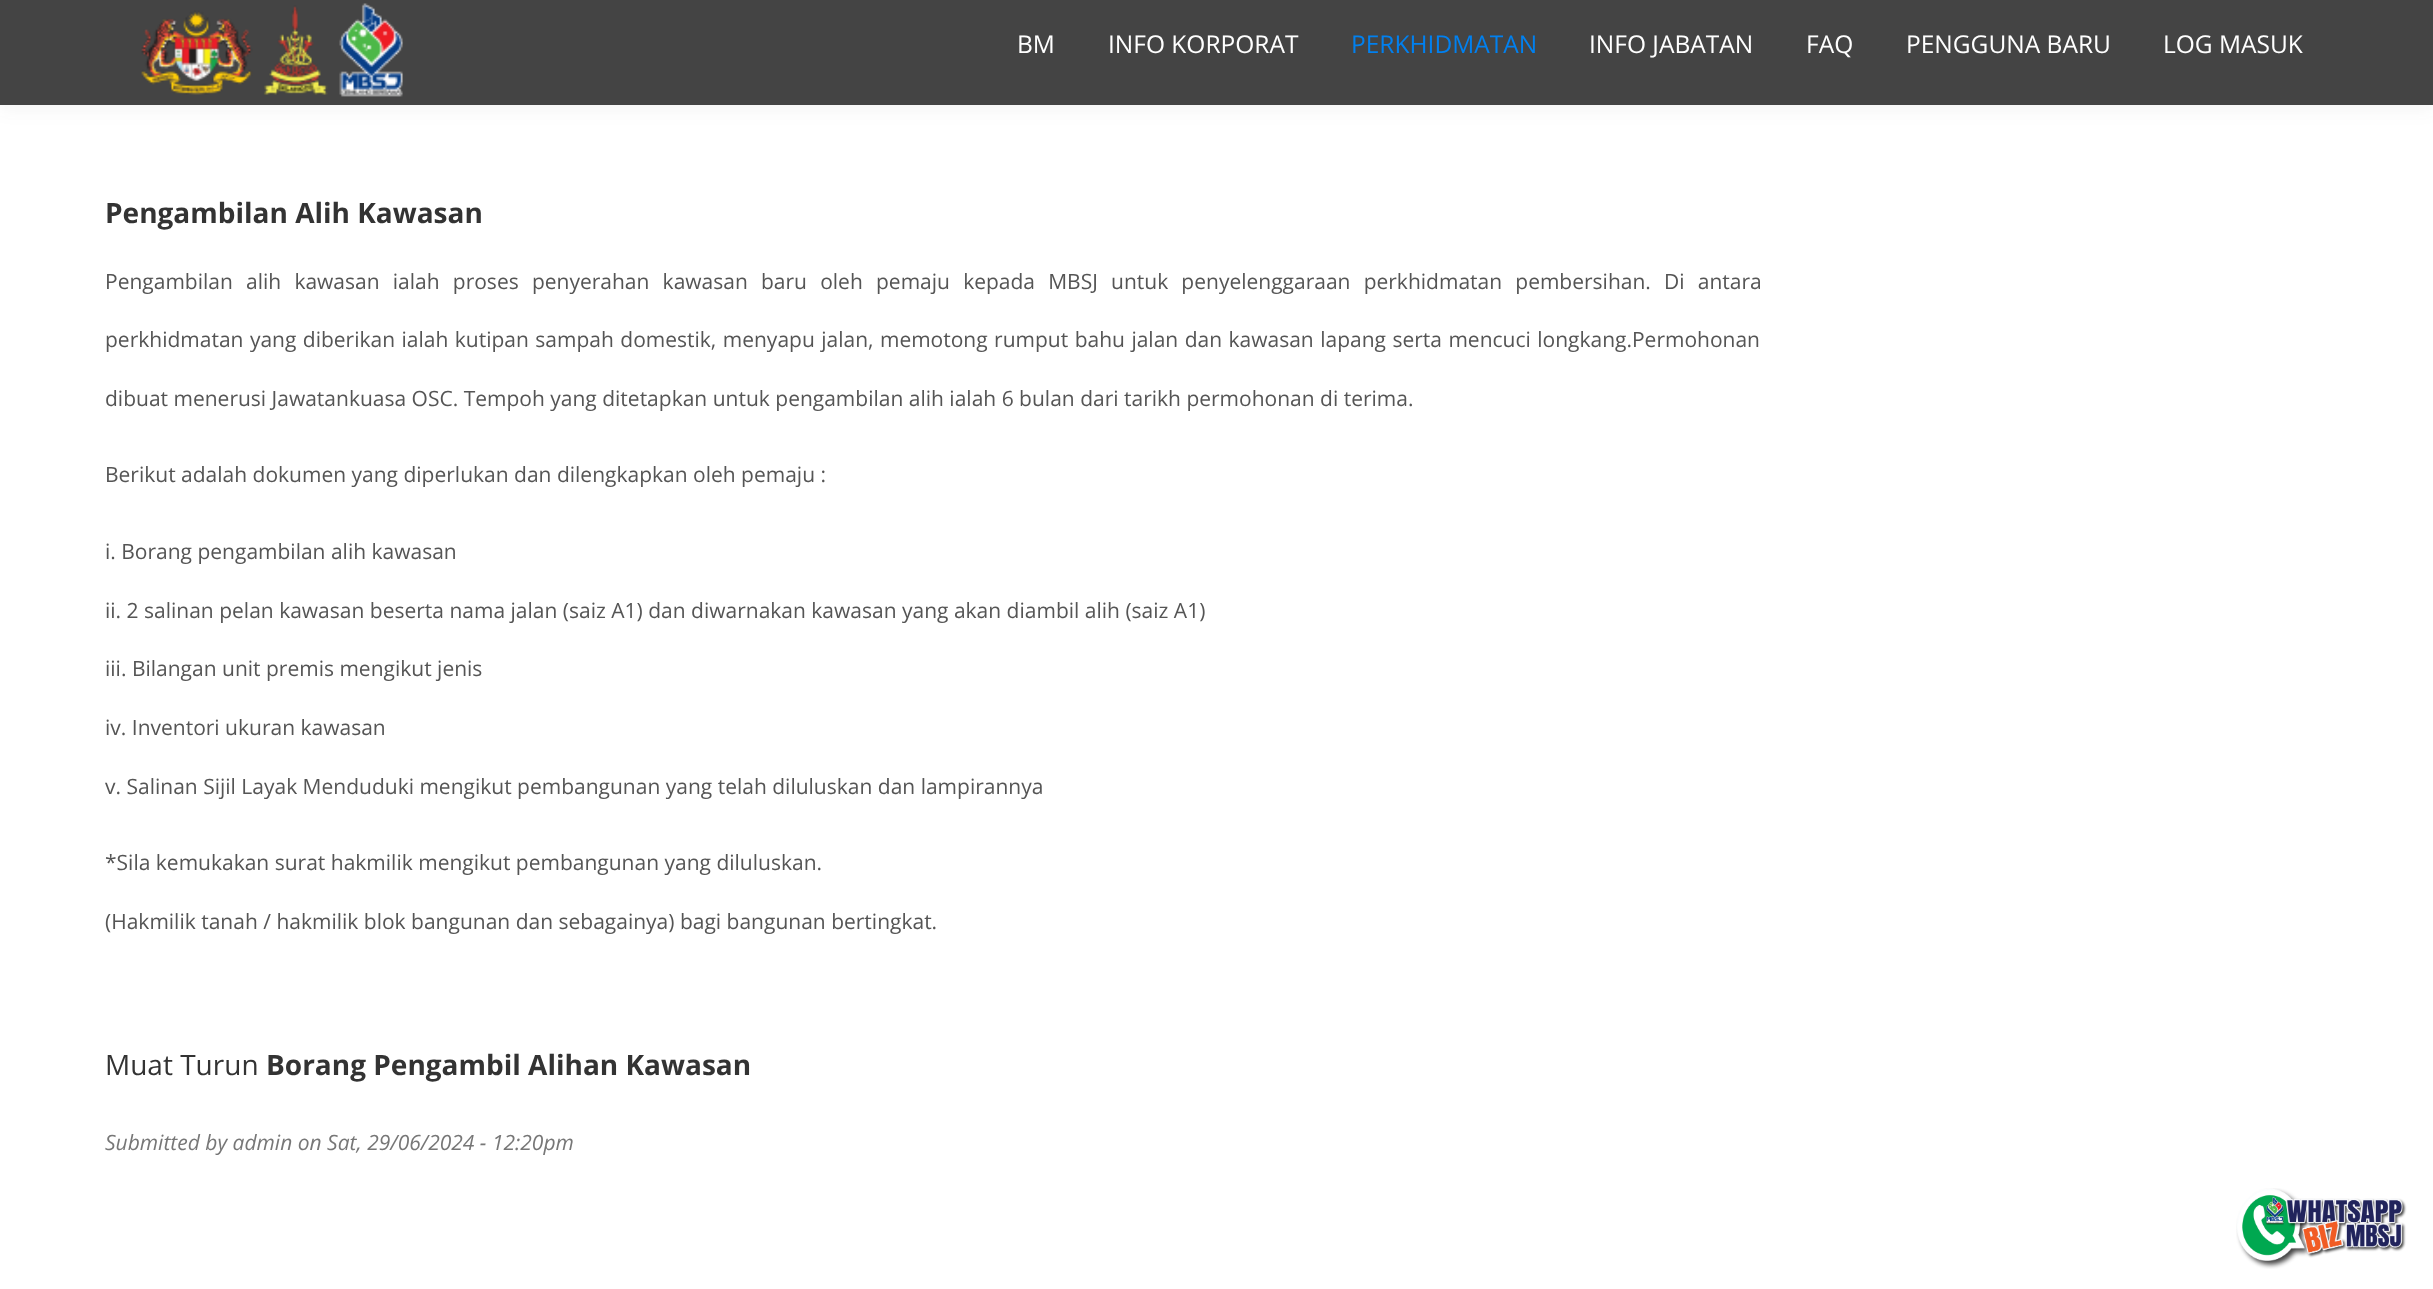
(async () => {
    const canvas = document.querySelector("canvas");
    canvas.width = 2433;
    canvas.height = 1289;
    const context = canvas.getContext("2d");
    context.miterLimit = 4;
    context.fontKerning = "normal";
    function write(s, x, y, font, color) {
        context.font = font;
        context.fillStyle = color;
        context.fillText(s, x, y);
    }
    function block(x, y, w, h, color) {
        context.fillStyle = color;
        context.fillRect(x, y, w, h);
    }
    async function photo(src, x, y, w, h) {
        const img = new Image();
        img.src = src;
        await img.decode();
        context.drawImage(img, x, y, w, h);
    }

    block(0, 0, 2433, 1289, "rgb(255, 255, 255)");
    context.fillStyle = "rgba(50, 50, 50, 0.05)";
    context.filter = "blur(9px)";
    context.beginPath();
    context.rect(0, 5, 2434, 105);
    context.fill();
    context.filter = "none";
    block(0, 0, 2433, 105, "rgb(68, 68, 68)");
    await photo("media/1.png", 141, 3, 262, 94);
    write("BM", 1017, 53, "24.5px Open Sans", "rgb(255, 255, 255)");
    write("INFO KORPORAT", 1108, 53, "24.5px Open Sans", "rgb(255, 255, 255)");
    write("PERKHIDMATAN", 1351, 53, "24.5px Open Sans", "rgb(1, 128, 239)");
    write("INFO JABATAN", 1589, 53, "24.5px Open Sans", "rgb(255, 255, 255)");
    write("FAQ", 1806, 53, "24.5px Open Sans", "rgb(255, 255, 255)");
    write("PENGGUNA BARU", 1906, 53, "24.5px Open Sans", "rgb(255, 255, 255)");
    write("LOG MASUK", 2163, 53, "24.5px Open Sans", "rgb(255, 255, 255)");
    write("Pengambilan Alih Kawasan", 105, 223, "bold 28px Open Sans", "rgb(51, 51, 51)");
    context.wordSpacing = "7.75px";
    write("Pengambilan alih kawasan ialah proses penyerahan kawasan baru oleh pemaju kepada MBSJ untuk penyelenggaraan perkhidmatan pembersihan. Di antara", 105, 289, "21px Open Sans", "rgb(85, 85, 85)");
    context.wordSpacing = "1px";
    write("perkhidmatan yang diberikan ialah kutipan sampah domestik, menyapu jalan, memotong rumput bahu jalan dan kawasan lapang serta mencuci longkang.Permohonan", 105, 347, "21px Open Sans", "rgb(85, 85, 85)");
    context.wordSpacing = "0px";
    write("dibuat menerusi Jawatankuasa OSC. Tempoh yang ditetapkan untuk pengambilan alih ialah 6 bulan dari tarikh permohonan di terima.", 105, 406, "21px Open Sans", "rgb(85, 85, 85)");
    write("Berikut adalah dokumen yang diperlukan dan dilengkapkan oleh pemaju :", 105, 482, "21px Open Sans", "rgb(85, 85, 85)");
    write("i. Borang pengambilan alih kawasan", 105, 559, "21px Open Sans", "rgb(85, 85, 85)");
    write("ii. 2 salinan pelan kawasan beserta nama jalan (saiz A1) dan diwarnakan kawasan yang akan diambil alih (saiz A1)", 105, 618, "21px Open Sans", "rgb(85, 85, 85)");
    write("iii. Bilangan unit premis mengikut jenis", 105, 676, "21px Open Sans", "rgb(85, 85, 85)");
    write("iv. Inventori ukuran kawasan", 105, 735, "21px Open Sans", "rgb(85, 85, 85)");
    write("v. Salinan Sijil Layak Menduduki mengikut pembangunan yang telah diluluskan dan lampirannya", 105, 794, "21px Open Sans", "rgb(85, 85, 85)");
    write("*Sila kemukakan surat hakmilik mengikut pembangunan yang diluluskan.", 105, 870, "21px Open Sans", "rgb(85, 85, 85)");
    write("(Hakmilik tanah / hakmilik blok bangunan dan sebagainya) bagi bangunan bertingkat.", 105, 929, "21px Open Sans", "rgb(85, 85, 85)");
    write("Muat Turun", 105, 1075, "28px Open Sans", "rgb(51, 51, 51)");
    write("Borang Pengambil Alihan Kawasan", 266, 1075, "bold 28px Open Sans", "rgb(51, 51, 51)");
    write("Submitted by admin on Sat, 29/06/2024 - 12:20pm", 105, 1150, "italic 21px Open Sans", "rgb(119, 119, 119)");
    await photo("media/2.png", 2236, 1188, 171, 81);
})();
